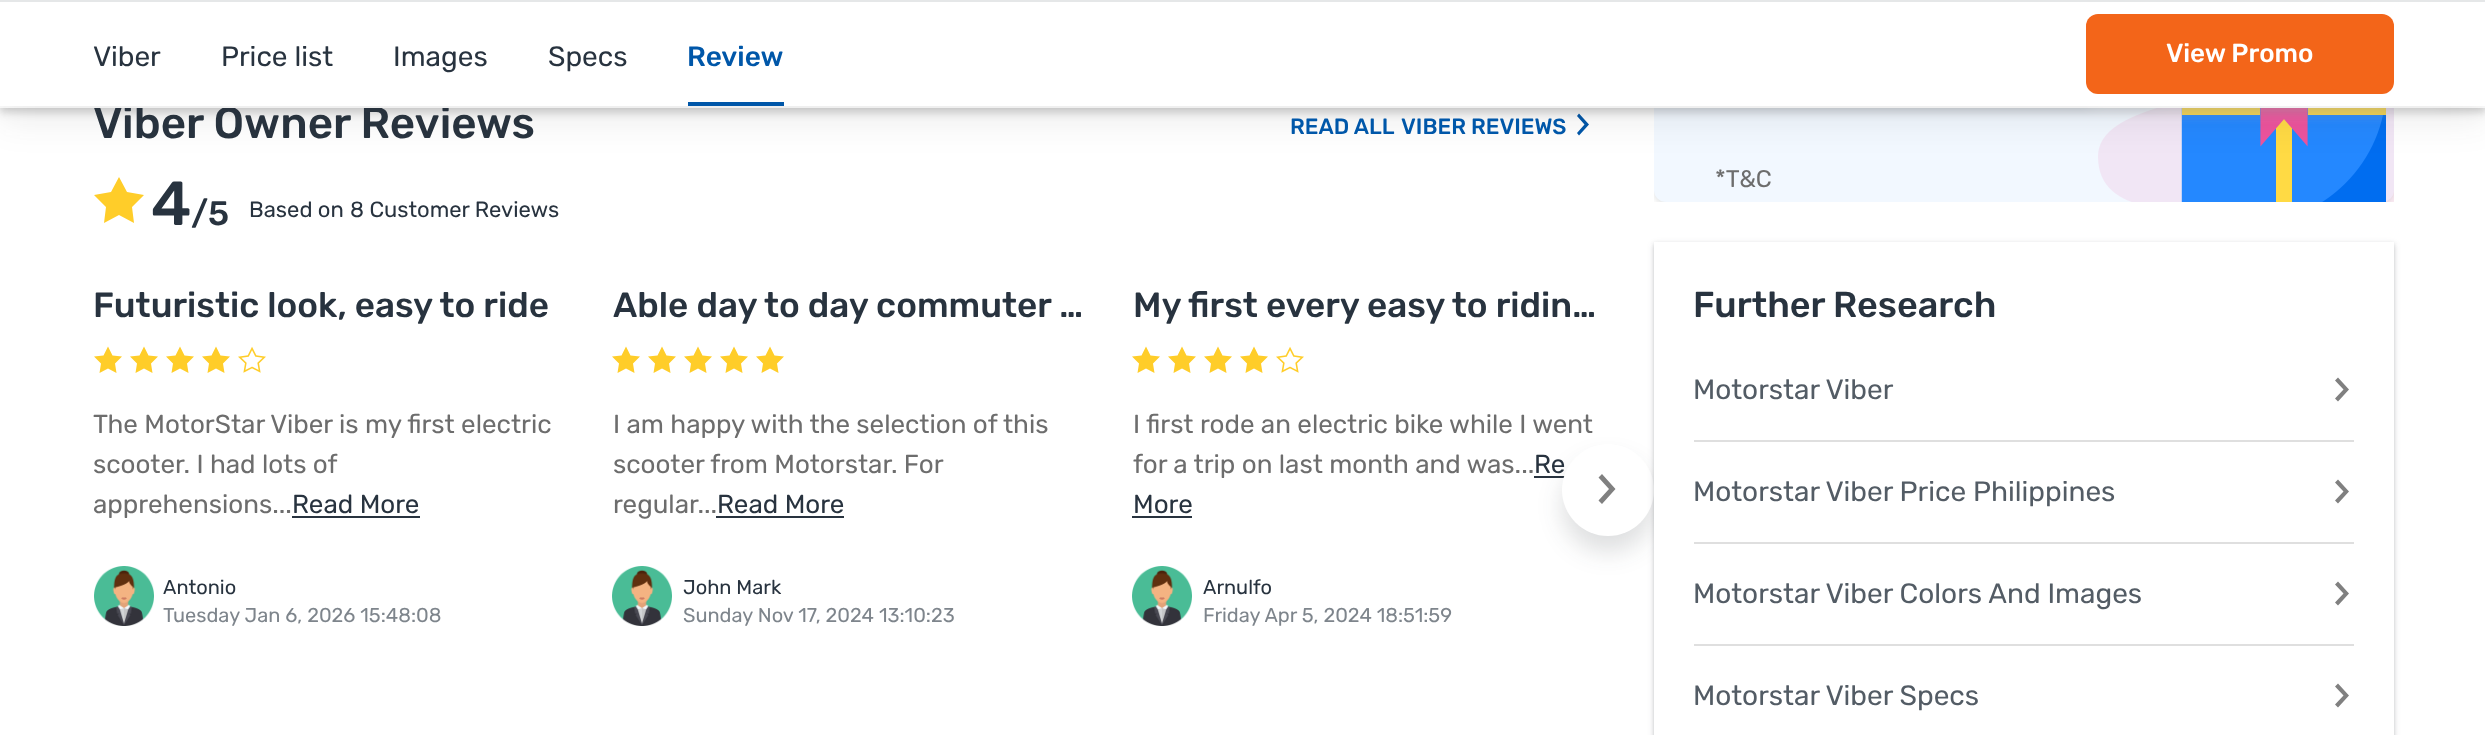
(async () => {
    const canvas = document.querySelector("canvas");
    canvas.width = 2485;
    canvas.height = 735;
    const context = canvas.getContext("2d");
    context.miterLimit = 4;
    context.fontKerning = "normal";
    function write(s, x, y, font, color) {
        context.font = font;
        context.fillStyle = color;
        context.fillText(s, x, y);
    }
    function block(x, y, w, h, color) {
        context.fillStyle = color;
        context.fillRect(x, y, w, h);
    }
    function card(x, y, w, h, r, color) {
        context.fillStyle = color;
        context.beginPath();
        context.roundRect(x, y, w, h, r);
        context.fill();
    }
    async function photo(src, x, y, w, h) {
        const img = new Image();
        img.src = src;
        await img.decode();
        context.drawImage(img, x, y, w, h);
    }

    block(0, 0, 2485, 735, "rgb(255, 255, 255)");
    context.fillStyle = "rgb(0, 87, 169)";
    context.beginPath();
    context.moveTo(1577, 133);
    context.lineTo(1584.5, 124.5);
    context.lineTo(1577, 116);
    context.lineTo(1579, 113.5);
    context.lineTo(1589, 124.5);
    context.lineTo(1579, 135.5);
    context.closePath();
    context.fill();
    context.save();
    context.beginPath();
    context.rect(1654, 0, 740, 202);
    context.clip();
    context.fillStyle = "rgba(40, 51, 63, 0.15)";
    context.filter = "blur(3px)";
    context.beginPath();
    context.roundRect(1654, -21, 740, 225, 12);
    context.fill();
    context.filter = "none";
    context.restore();
    card(1654, -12, 740, 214, 12, "rgb(242, 248, 255)");
    await photo("media/3.png", 2098, 108, 296, 94);
    context.fillStyle = "rgba(0, 0, 0, 0.19)";
    context.filter = "blur(4px)";
    context.beginPath();
    context.rect(0, 4, 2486, 108);
    context.fill();
    context.filter = "none";
    write("Viber Owner Reviews", 93, 138, "500 44px Rubik", "rgb(40, 51, 63)");
    block(0, 106, 2485, 2, "rgb(255, 255, 255)");
    context.fillStyle = "rgba(255, 255, 255, 0.2)";
    context.filter = "blur(8px)";
    context.beginPath();
    context.roundRect(2150, 30, 296, 80, 12);
    context.fill();
    context.filter = "none";
    context.fillStyle = "rgba(36, 39, 44, 0.1)";
    context.filter = "blur(18px)";
    context.beginPath();
    context.rect(0, 12, 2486, 106);
    context.fill();
    context.filter = "none";
    block(0, 2, 2485, 104, "rgb(255, 255, 255)");
    block(0, 0, 2485, 2, "rgb(229, 231, 232)");
    write("Viber", 93, 66, "28px Rubik", "rgb(40, 51, 63)");
    write("Price list", 221, 66, "28px Rubik", "rgb(40, 51, 63)");
    write("Images", 393, 66, "28px Rubik", "rgb(40, 51, 63)");
    write("Specs", 548, 66, "28px Rubik", "rgb(40, 51, 63)");
    block(688, 102, 96, 4, "rgb(0, 87, 169)");
    write("Review", 687, 66, "500 28px Rubik", "rgb(0, 87, 169)");
    context.fillStyle = "rgba(255, 255, 255, 0.2)";
    context.filter = "blur(8px)";
    context.beginPath();
    context.roundRect(2086, 30, 308, 80, 12);
    context.fill();
    context.filter = "none";
    card(2086, 14, 308, 80, 12, "rgb(243, 101, 25)");
    write("View Promo", 2166, 62, "500 26px Rubik", "rgb(255, 255, 255)");
    write("READ ALL", 1290, 134, "500 22px Rubik", "rgb(0, 87, 169)");
    write("VIBER REVIEWS", 1401, 134, "500 22px Rubik", "rgb(0, 87, 169)");
    context.fillStyle = "rgb(255, 205, 41)";
    context.beginPath();
    context.moveTo(94, 195);
    context.lineTo(111, 192);
    context.lineTo(119, 177);
    context.lineTo(127, 192);
    context.lineTo(144, 195);
    context.lineTo(132, 207);
    context.lineTo(134, 223);
    context.lineTo(119, 215);
    context.lineTo(104, 223);
    context.lineTo(106, 207);
    context.closePath();
    context.fill();
    write("4", 151, 225, "500 62px Rubik", "rgb(40, 51, 63)");
    write("/5", 191, 225, "500 34px Rubik", "rgb(40, 51, 63)");
    write("Based on", 249, 217, "22px Rubik", "rgb(40, 51, 63)");
    write("8 Customer Reviews", 350, 217, "22px Rubik", "rgb(40, 51, 63)");
    write("Futuristic look, easy to ride", 93, 317, "500 35.1px Rubik", "rgb(40, 51, 63)");
    context.fillStyle = "rgb(255, 205, 41)";
    context.beginPath();
    context.moveTo(94, 356.5);
    context.lineTo(103.5, 355.5);
    context.lineTo(108, 346.5);
    context.lineTo(112.5, 355.5);
    context.lineTo(122, 356.5);
    context.lineTo(115, 363.5);
    context.lineTo(116.5, 373);
    context.lineTo(108, 368.5);
    context.lineTo(99.5, 373);
    context.lineTo(101, 363.5);
    context.closePath();
    context.fill();
    context.beginPath();
    context.moveTo(130, 356.5);
    context.lineTo(139.5, 355.5);
    context.lineTo(144, 346.5);
    context.lineTo(148.5, 355.5);
    context.lineTo(158, 356.5);
    context.lineTo(151, 363.5);
    context.lineTo(152.5, 373);
    context.lineTo(144, 368.5);
    context.lineTo(135.5, 373);
    context.lineTo(137, 363.5);
    context.closePath();
    context.fill();
    context.beginPath();
    context.moveTo(166, 356.5);
    context.lineTo(175.5, 355.5);
    context.lineTo(180, 346.5);
    context.lineTo(184.5, 355.5);
    context.lineTo(194, 356.5);
    context.lineTo(187, 363.5);
    context.lineTo(188.5, 373);
    context.lineTo(180, 368.5);
    context.lineTo(171.5, 373);
    context.lineTo(173, 363.5);
    context.closePath();
    context.fill();
    context.beginPath();
    context.moveTo(202, 356.5);
    context.lineTo(211.5, 355.5);
    context.lineTo(216, 346.5);
    context.lineTo(220.5, 355.5);
    context.lineTo(230, 356.5);
    context.lineTo(223, 363.5);
    context.lineTo(224.5, 373);
    context.lineTo(216, 368.5);
    context.lineTo(207.5, 373);
    context.lineTo(209, 363.5);
    context.closePath();
    context.fill();
    await photo("media/1.png", 238, 346, 28, 27);
    write("The MotorStar Viber is my first electric", 93, 433, "26px Rubik", "rgb(109, 109, 109)");
    write("scooter. I had lots of", 93, 473, "26px Rubik", "rgb(109, 109, 109)");
    write("apprehensions...", 93, 513, "26px Rubik", "rgb(109, 109, 109)");
    write("Read More", 292, 513, "26px Rubik", "rgb(40, 51, 63)");
    block(292, 516, 128, 2, "rgb(40, 51, 63)");
    await photo("media/2.png", 94, 566, 60, 60);
    write("Antonio", 163, 594, "20px Rubik", "rgb(40, 51, 63)");
    write("Tuesday Jan 6, 2026 15:48:08", 163, 622, "20px Rubik", "rgb(126, 133, 140)");
    write("Able day to day commuter …", 613, 317, "500 35.1px Rubik", "rgb(40, 51, 63)");
    context.fillStyle = "rgb(255, 205, 41)";
    context.beginPath();
    context.moveTo(612, 356.5);
    context.lineTo(621.5, 355.5);
    context.lineTo(626, 346.5);
    context.lineTo(630.5, 355.5);
    context.lineTo(640, 356.5);
    context.lineTo(633, 363.5);
    context.lineTo(634.5, 373);
    context.lineTo(626, 368.5);
    context.lineTo(617.5, 373);
    context.lineTo(619, 363.5);
    context.closePath();
    context.fill();
    context.beginPath();
    context.moveTo(648, 356.5);
    context.lineTo(657.5, 355.5);
    context.lineTo(662, 346.5);
    context.lineTo(666.5, 355.5);
    context.lineTo(676, 356.5);
    context.lineTo(669, 363.5);
    context.lineTo(670.5, 373);
    context.lineTo(662, 368.5);
    context.lineTo(653.5, 373);
    context.lineTo(655, 363.5);
    context.closePath();
    context.fill();
    context.beginPath();
    context.moveTo(684, 356.5);
    context.lineTo(693.5, 355.5);
    context.lineTo(698, 346.5);
    context.lineTo(702.5, 355.5);
    context.lineTo(712, 356.5);
    context.lineTo(705, 363.5);
    context.lineTo(706.5, 373);
    context.lineTo(698, 368.5);
    context.lineTo(689.5, 373);
    context.lineTo(691, 363.5);
    context.closePath();
    context.fill();
    context.beginPath();
    context.moveTo(720, 356.5);
    context.lineTo(729.5, 355.5);
    context.lineTo(734, 346.5);
    context.lineTo(738.5, 355.5);
    context.lineTo(748, 356.5);
    context.lineTo(741, 363.5);
    context.lineTo(742.5, 373);
    context.lineTo(734, 368.5);
    context.lineTo(725.5, 373);
    context.lineTo(727, 363.5);
    context.closePath();
    context.fill();
    context.beginPath();
    context.moveTo(756, 356.5);
    context.lineTo(765.5, 355.5);
    context.lineTo(770, 346.5);
    context.lineTo(774.5, 355.5);
    context.lineTo(784, 356.5);
    context.lineTo(777, 363.5);
    context.lineTo(778.5, 373);
    context.lineTo(770, 368.5);
    context.lineTo(761.5, 373);
    context.lineTo(763, 363.5);
    context.closePath();
    context.fill();
    write("I am happy with the selection of this", 613, 433, "26px Rubik", "rgb(109, 109, 109)");
    write("scooter from Motorstar. For", 613, 473, "26px Rubik", "rgb(109, 109, 109)");
    write("regular...", 613, 513, "26px Rubik", "rgb(109, 109, 109)");
    write("Read More", 717, 513, "26px Rubik", "rgb(40, 51, 63)");
    block(716, 516, 128, 2, "rgb(40, 51, 63)");
    await photo("media/2.png", 612, 566, 60, 60);
    write("John Mark", 683, 594, "20px Rubik", "rgb(40, 51, 63)");
    write("Sunday Nov 17, 2024 13:10:23", 683, 622, "20px Rubik", "rgb(126, 133, 140)");
    write("My first every easy to ridin…", 1133, 317, "500 35.1px Rubik", "rgb(40, 51, 63)");
    context.fillStyle = "rgb(255, 205, 41)";
    context.beginPath();
    context.moveTo(1132, 356.5);
    context.lineTo(1141.5, 355.5);
    context.lineTo(1146, 346.5);
    context.lineTo(1150.5, 355.5);
    context.lineTo(1160, 356.5);
    context.lineTo(1153, 363.5);
    context.lineTo(1154.5, 373);
    context.lineTo(1146, 368.5);
    context.lineTo(1137.5, 373);
    context.lineTo(1139, 363.5);
    context.closePath();
    context.fill();
    context.beginPath();
    context.moveTo(1168, 356.5);
    context.lineTo(1177.5, 355.5);
    context.lineTo(1182, 346.5);
    context.lineTo(1186.5, 355.5);
    context.lineTo(1196, 356.5);
    context.lineTo(1189, 363.5);
    context.lineTo(1190.5, 373);
    context.lineTo(1182, 368.5);
    context.lineTo(1173.5, 373);
    context.lineTo(1175, 363.5);
    context.closePath();
    context.fill();
    context.beginPath();
    context.moveTo(1204, 356.5);
    context.lineTo(1213.5, 355.5);
    context.lineTo(1218, 346.5);
    context.lineTo(1222.5, 355.5);
    context.lineTo(1232, 356.5);
    context.lineTo(1225, 363.5);
    context.lineTo(1226.5, 373);
    context.lineTo(1218, 368.5);
    context.lineTo(1209.5, 373);
    context.lineTo(1211, 363.5);
    context.closePath();
    context.fill();
    context.beginPath();
    context.moveTo(1240, 356.5);
    context.lineTo(1249.5, 355.5);
    context.lineTo(1254, 346.5);
    context.lineTo(1258.5, 355.5);
    context.lineTo(1268, 356.5);
    context.lineTo(1261, 363.5);
    context.lineTo(1262.5, 373);
    context.lineTo(1254, 368.5);
    context.lineTo(1245.5, 373);
    context.lineTo(1247, 363.5);
    context.closePath();
    context.fill();
    await photo("media/1.png", 1276, 346, 28, 27);
    write("I first rode an electric bike while I went", 1133, 433, "26px Rubik", "rgb(109, 109, 109)");
    write("for a trip on last month and was...", 1133, 473, "26px Rubik", "rgb(109, 109, 109)");
    write("Re", 1534, 473, "26px Rubik", "rgb(40, 51, 63)");
    block(1534, 476, 31, 2, "rgb(40, 51, 63)");
    write("More", 1133, 513, "26px Rubik", "rgb(40, 51, 63)");
    block(1132, 516, 60, 2, "rgb(40, 51, 63)");
    await photo("media/2.png", 1132, 566, 60, 60);
    write("Arnulfo", 1203, 594, "20px Rubik", "rgb(40, 51, 63)");
    write("Friday Apr 5, 2024 18:51:59", 1203, 622, "20px Rubik", "rgb(126, 133, 140)");
    context.fillStyle = "rgba(36, 39, 44, 0.15)";
    context.filter = "blur(12px)";
    context.beginPath();
    context.roundRect(1562, 460, 92, 92, 46);
    context.fill();
    context.filter = "none";
    context.fillStyle = "rgb(255, 255, 255)";
    context.beginPath();
    context.arc(1608, 490, 46, 0, Math.PI * 2);
    context.fill();
    context.fillStyle = "rgb(128, 128, 128)";
    context.beginPath();
    context.moveTo(1598.5, 500.5);
    context.lineTo(1609, 489);
    context.lineTo(1598.5, 477.5);
    context.lineTo(1602, 474);
    context.lineTo(1615.5, 489);
    context.lineTo(1602, 504);
    context.closePath();
    context.fill();
    write("*T&C", 1715, 187, "24px Rubik", "rgb(109, 109, 109)");
    context.fillStyle = "rgba(36, 39, 44, 0.15)";
    context.filter = "blur(2px)";
    context.beginPath();
    context.rect(1654, 244, 740, 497);
    context.fill();
    context.filter = "none";
    context.filter = "blur(3px)";
    context.beginPath();
    context.rect(1654, 244, 740, 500);
    context.fill();
    context.filter = "none";
    block(1654, 242, 740, 493, "rgb(255, 255, 255)");
    write("Further Research", 1693, 317, "500 36px Rubik", "rgb(40, 51, 63)");
    block(1694, 440, 660, 2, "rgb(223, 223, 223)");
    write("Motorstar Viber", 1693, 399, "28px Rubik", "rgb(83, 92, 101)");
    context.fillStyle = "rgb(128, 128, 128)";
    context.beginPath();
    context.moveTo(2335, 398.5);
    context.lineTo(2343.5, 389.5);
    context.lineTo(2335, 380.5);
    context.lineTo(2338, 377.5);
    context.lineTo(2349, 389.5);
    context.lineTo(2338, 401.5);
    context.closePath();
    context.fill();
    block(1694, 542, 660, 2, "rgb(223, 223, 223)");
    write("Motorstar Viber Price Philippines", 1693, 501, "28px Rubik", "rgb(83, 92, 101)");
    context.fillStyle = "rgb(128, 128, 128)";
    context.beginPath();
    context.moveTo(2335, 500.5);
    context.lineTo(2343.5, 491.5);
    context.lineTo(2335, 482.5);
    context.lineTo(2338, 479.5);
    context.lineTo(2349, 491.5);
    context.lineTo(2338, 503.5);
    context.closePath();
    context.fill();
    block(1694, 644, 660, 2, "rgb(223, 223, 223)");
    write("Motorstar Viber Colors And Images", 1693, 603, "28px Rubik", "rgb(83, 92, 101)");
    context.fillStyle = "rgb(128, 128, 128)";
    context.beginPath();
    context.moveTo(2335, 602.5);
    context.lineTo(2343.5, 593.5);
    context.lineTo(2335, 584.5);
    context.lineTo(2338, 581.5);
    context.lineTo(2349, 593.5);
    context.lineTo(2338, 605.5);
    context.closePath();
    context.fill();
    write("Motorstar Viber Specs", 1693, 705, "28px Rubik", "rgb(83, 92, 101)");
    context.fillStyle = "rgb(128, 128, 128)";
    context.beginPath();
    context.moveTo(2335, 704.5);
    context.lineTo(2343.5, 695.5);
    context.lineTo(2335, 686.5);
    context.lineTo(2338, 683.5);
    context.lineTo(2349, 695.5);
    context.lineTo(2338, 707.5);
    context.closePath();
    context.fill();
})();
